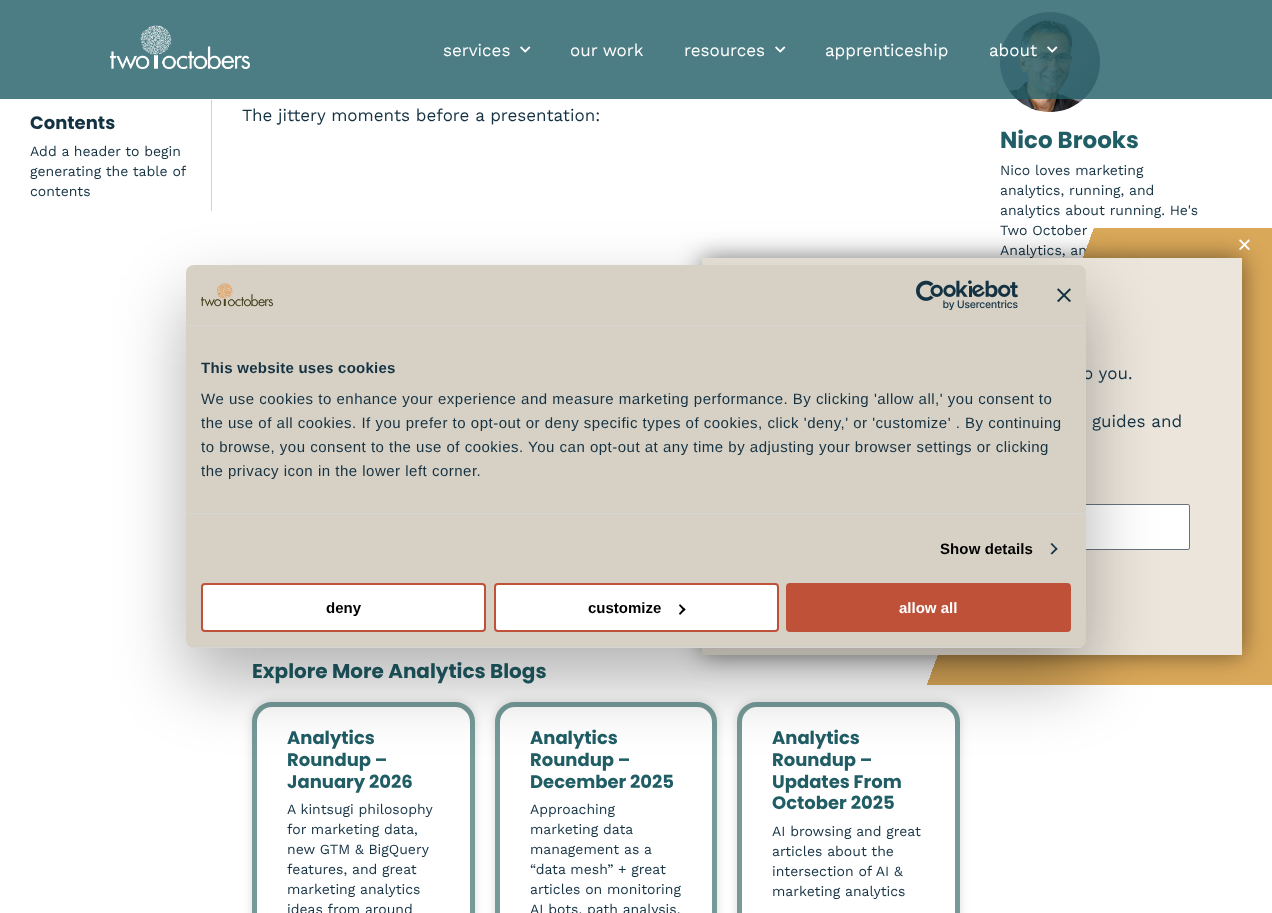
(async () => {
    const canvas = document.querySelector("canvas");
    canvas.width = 1272;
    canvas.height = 913;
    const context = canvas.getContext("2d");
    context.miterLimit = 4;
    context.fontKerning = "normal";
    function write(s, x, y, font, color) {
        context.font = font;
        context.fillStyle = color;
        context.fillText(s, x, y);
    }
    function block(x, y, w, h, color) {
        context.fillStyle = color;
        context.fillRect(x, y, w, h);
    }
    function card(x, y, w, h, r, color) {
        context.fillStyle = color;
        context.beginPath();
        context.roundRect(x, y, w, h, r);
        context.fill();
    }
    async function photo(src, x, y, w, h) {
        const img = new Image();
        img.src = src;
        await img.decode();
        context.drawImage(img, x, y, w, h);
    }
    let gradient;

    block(0, 0, 1272, 913, "rgb(255, 255, 255)");
    await photo("media/5.png", 1000, 12, 100, 100);
    block(0, 0, 1272, 99, "rgba(32, 93, 101, 0.8)");
    await photo("media/1.png", 110, 25, 140, 44);
    write("services", 443, 56, "17px Work Sans", "rgb(255, 255, 255)");
    await photo("media/2.png", 520, 46, 11, 7);
    write("our work", 570, 56, "17px Work Sans", "rgb(255, 255, 255)");
    write("resources", 684, 56, "17px Work Sans", "rgb(255, 255, 255)");
    await photo("media/3.png", 775, 46, 11, 7);
    write("apprenticeship", 825, 56, "17px Work Sans", "rgb(255, 255, 255)");
    write("about", 989, 56, "17px Work Sans", "rgb(255, 255, 255)");
    await photo("media/4.png", 1047, 46, 11, 7);
    block(211, 100, 1, 111, "rgb(215, 209, 197)");
    write("Contents", 30, 129, "bold 18px Poppins", "rgb(21, 50, 67)");
    write("Add a header to begin", 30, 156, "14px Work Sans", "rgb(21, 50, 67)");
    write("generating the table of", 30, 176, "14px Work Sans", "rgb(21, 50, 67)");
    write("contents", 30, 196, "14px Work Sans", "rgb(21, 50, 67)");
    write("The jittery moments before a presentation:", 242, 121, "17px Work Sans", "rgb(21, 50, 67)");
    write("Explore More Analytics Blogs", 252, 678, "bold 20px Poppins", "rgb(32, 93, 101)");
    context.fillStyle = "rgba(0, 0, 0, 0.15)";
    context.filter = "blur(5px)";
    context.beginPath();
    context.roundRect(252, 702, 223, 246, 20);
    context.fill();
    context.filter = "none";
    context.fillStyle = "rgb(255, 255, 255)";
    context.beginPath();
    context.roundRect(254.5, 704.5, 218, 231, 17.5);
    context.fill();
    context.strokeStyle = "rgb(117, 154, 152)";
    context.lineWidth = 5;
    context.stroke();
    write("Analytics", 287, 744, "bold 18px Poppins", "rgb(32, 93, 101)");
    write("Roundup –", 287, 766, "bold 18px Poppins", "rgb(32, 93, 101)");
    write("January 2026", 287, 788, "bold 18px Poppins", "rgb(32, 93, 101)");
    write("A kintsugi philosophy", 287, 814, "14px Work Sans", "rgb(21, 50, 67)");
    write("for marketing data,", 287, 834, "14px Work Sans", "rgb(21, 50, 67)");
    write("new GTM & BigQuery", 287, 854, "14px Work Sans", "rgb(21, 50, 67)");
    write("features, and great", 287, 874, "14px Work Sans", "rgb(21, 50, 67)");
    write("marketing analytics", 287, 894, "14px Work Sans", "rgb(21, 50, 67)");
    write("ideas from around", 287, 914, "14px Work Sans", "rgb(21, 50, 67)");
    context.fillStyle = "rgba(0, 0, 0, 0.15)";
    context.filter = "blur(5px)";
    context.beginPath();
    context.roundRect(495, 702, 222, 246, 20);
    context.fill();
    context.filter = "none";
    context.fillStyle = "rgb(255, 255, 255)";
    context.beginPath();
    context.roundRect(497.5, 704.5, 217, 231, 17.5);
    context.fill();
    context.stroke();
    write("Analytics", 530, 744, "bold 18px Poppins", "rgb(32, 93, 101)");
    write("Roundup –", 530, 766, "bold 18px Poppins", "rgb(32, 93, 101)");
    write("December 2025", 530, 788, "bold 18px Poppins", "rgb(32, 93, 101)");
    write("Approaching", 530, 814, "14px Work Sans", "rgb(21, 50, 67)");
    write("marketing data", 530, 834, "14px Work Sans", "rgb(21, 50, 67)");
    write("management as a", 530, 854, "14px Work Sans", "rgb(21, 50, 67)");
    write("“data mesh” + great", 530, 874, "14px Work Sans", "rgb(21, 50, 67)");
    write("articles on monitoring", 530, 894, "14px Work Sans", "rgb(21, 50, 67)");
    write("AI bots, path analysis,", 530, 914, "14px Work Sans", "rgb(21, 50, 67)");
    context.fillStyle = "rgba(0, 0, 0, 0.15)";
    context.filter = "blur(5px)";
    context.beginPath();
    context.roundRect(737, 702, 223, 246, 20);
    context.fill();
    context.filter = "none";
    context.fillStyle = "rgb(255, 255, 255)";
    context.beginPath();
    context.roundRect(739.5, 704.5, 218, 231, 17.5);
    context.fill();
    context.stroke();
    write("Analytics", 772, 744, "bold 18px Poppins", "rgb(32, 93, 101)");
    write("Roundup –", 772, 766, "bold 18px Poppins", "rgb(32, 93, 101)");
    write("Updates From", 772, 788, "bold 18px Poppins", "rgb(32, 93, 101)");
    write("October 2025", 772, 809, "bold 18px Poppins", "rgb(32, 93, 101)");
    write("AI browsing and great", 772, 836, "14px Work Sans", "rgb(21, 50, 67)");
    write("articles about the", 772, 856, "14px Work Sans", "rgb(21, 50, 67)");
    write("intersection of AI &", 772, 876, "14px Work Sans", "rgb(21, 50, 67)");
    write("marketing analytics", 772, 896, "14px Work Sans", "rgb(21, 50, 67)");
    write("Nico Brooks", 1000, 148, "bold 23px Poppins", "rgb(32, 93, 101)");
    write("Nico loves marketing", 1000, 175, "14px Work Sans", "rgb(21, 50, 67)");
    write("analytics, running, and", 1000, 195, "14px Work Sans", "rgb(21, 50, 67)");
    write("analytics about running. He's", 1000, 215, "14px Work Sans", "rgb(21, 50, 67)");
    write("Two October", 1000, 235, "14px Work Sans", "rgb(21, 50, 67)");
    write("Analytics, an", 1000, 255, "14px Work Sans", "rgb(21, 50, 67)");
    gradient = context.createLinearGradient(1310, 580, 634, 333);
    gradient.addColorStop(0.45, "rgb(218, 168, 89)");
    gradient.addColorStop(0.45, "rgba(218, 168, 89, 0)");
    context.fillStyle = gradient;
    context.fillRect(927, 228, 345, 457);
    context.fillStyle = "rgba(0, 0, 0, 0.5)";
    context.filter = "blur(12px)";
    context.beginPath();
    context.rect(702, 258, 540, 397);
    context.fill();
    context.filter = "none";
    block(702, 258, 540, 397, "rgb(235, 229, 219)");
    context.fillStyle = "rgb(255, 255, 255)";
    context.beginPath();
    context.roundRect(754.5, 504.5, 435, 45, 1.5);
    context.fill();
    context.strokeStyle = "rgb(105, 114, 125)";
    context.lineWidth = 1;
    context.stroke();
    context.fillStyle = "rgba(0, 0, 0, 0.3)";
    context.filter = "blur(34px)";
    context.beginPath();
    context.roundRect(186, 297, 900, 383, 8);
    context.fill();
    context.filter = "none";
    write("o you.", 1083, 379, "17px Work Sans", "rgb(21, 50, 67)");
    card(186, 265, 900, 383, 8, "rgb(215, 209, 197)");
    block(186, 325, 900, 1, "rgb(214, 214, 214)");
    await photo("media/6.png", 201, 283, 72, 24);
    await photo("media/7.png", 916, 280, 102, 30);
    await photo("media/8.png", 1057, 288, 14, 14);
    block(186, 513, 900, 1, "rgb(214, 214, 214)");
    context.letterSpacing = "0.25px";
    write("This website uses cookies", 201, 373, "bold 15px Liberation Sans", "rgb(21, 50, 67)");
    context.letterSpacing = "0.5px";
    write("We use cookies to enhance your experience and measure marketing performance. By clicking 'allow all,' you consent to", 201, 404, "15px Liberation Sans", "rgb(21, 50, 67)");
    write("the use of all cookies. If you prefer to opt-out or deny specific types of cookies, click 'deny,' or 'customize' . By continuing", 201, 428, "15px Liberation Sans", "rgb(21, 50, 67)");
    write("to browse, you consent to the use of cookies. You can opt-out at any time by adjusting your browser settings or clicking", 201, 452, "15px Liberation Sans", "rgb(21, 50, 67)");
    write("the privacy icon in the lower left corner.", 201, 476, "15px Liberation Sans", "rgb(21, 50, 67)");
    context.letterSpacing = "0.1px";
    write("Show details", 940, 554, "bold 15px Liberation Sans", "rgb(0, 0, 0)");
    context.fillStyle = "rgb(21, 50, 67)";
    context.beginPath();
    context.moveTo(1052, 543);
    context.lineTo(1057.5, 549);
    context.lineTo(1056.5, 550);
    context.lineTo(1050.5, 544);
    context.closePath();
    context.fill();
    context.beginPath();
    context.moveTo(1056.5, 547.5);
    context.lineTo(1057.5, 549);
    context.lineTo(1052, 554.5);
    context.lineTo(1050.5, 553.5);
    context.closePath();
    context.fill();
    context.save();
    context.beginPath();
    context.roundRect(186, 265, 900, 383, 8);
    context.clip();
    block(186, 647, 900, 1, "rgb(214, 214, 214)");
    context.restore();
    context.fillStyle = "rgb(255, 255, 255)";
    context.beginPath();
    context.roundRect(202, 584, 283, 47, 3);
    context.fill();
    context.strokeStyle = "rgb(191, 81, 57)";
    context.lineWidth = 2;
    context.stroke();
    context.letterSpacing = "0px";
    write("deny", 326, 613, "bold 15px Liberation Sans", "rgb(0, 0, 0)");
    context.fillStyle = "rgb(255, 255, 255)";
    context.beginPath();
    context.roundRect(495, 584, 283, 47, 3);
    context.fill();
    context.stroke();
    write("customize", 588, 613, "bold 15px Liberation Sans", "rgb(0, 0, 0)");
    context.beginPath();
    context.moveTo(680, 604);
    context.lineTo(685.5, 609.5);
    context.lineTo(684, 611);
    context.lineTo(679, 605.5);
    context.closePath();
    context.fill();
    context.beginPath();
    context.moveTo(684, 608);
    context.lineTo(685.5, 609.5);
    context.lineTo(680, 615);
    context.lineTo(679, 613.5);
    context.closePath();
    context.fill();
    context.fillStyle = "rgb(191, 81, 57)";
    context.beginPath();
    context.roundRect(787, 584, 283, 47, 3);
    context.fill();
    context.stroke();
    write("allow all", 899, 613, "bold 15px Liberation Sans", "rgb(255, 255, 255)");
    await photo("media/9.png", 1239, 239, 11, 11);
    write("guides and", 1092, 427, "17px Work Sans", "rgb(21, 50, 67)");
})();
